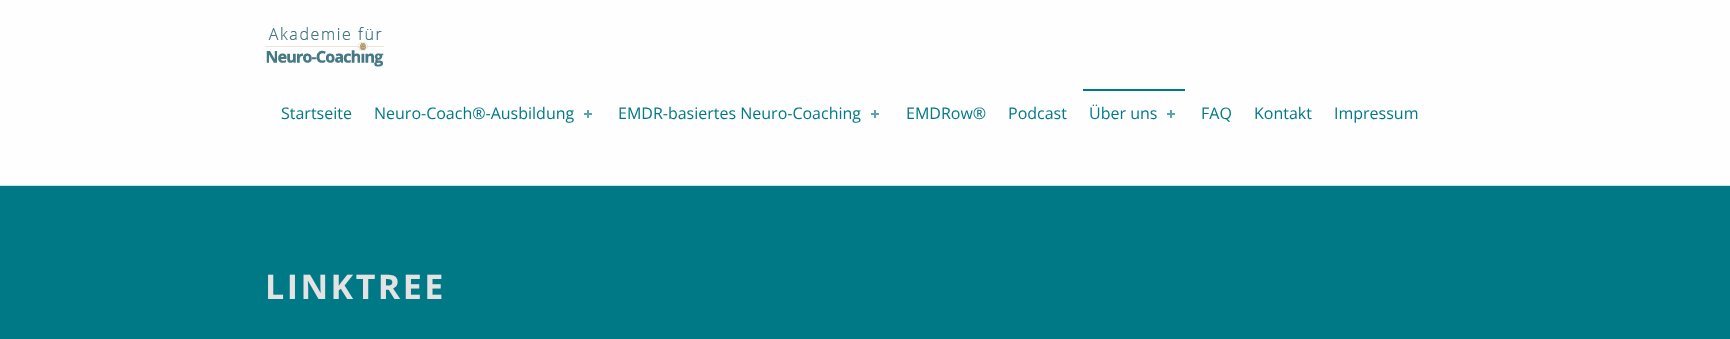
(async () => {
    const canvas = document.querySelector("canvas");
    canvas.width = 1730;
    canvas.height = 339;
    const context = canvas.getContext("2d");
    context.miterLimit = 4;
    context.fontKerning = "normal";
    function write(s, x, y, font, color) {
        context.font = font;
        context.fillStyle = color;
        context.fillText(s, x, y);
    }
    function block(x, y, w, h, color) {
        context.fillStyle = color;
        context.fillRect(x, y, w, h);
    }
    async function photo(src, x, y, w, h) {
        const img = new Image();
        img.src = src;
        await img.decode();
        context.drawImage(img, x, y, w, h);
    }

    block(0, 0, 1730, 339, "rgb(255, 254, 254)");
    block(0, 185, 1730, 1, "rgb(204, 227, 230)");
    await photo("media/1.png", 265, 27, 120, 40);
    write("Startseite", 281, 119, "16px Open Sans", "rgb(0, 121, 135)");
    write("Neuro-Coach®-Ausbildung", 374, 119, "16px Open Sans", "rgb(0, 121, 135)");
    block(584, 113, 8, 2, "rgb(87, 166, 175)");
    block(587, 110, 2, 8, "rgb(87, 166, 175)");
    write("EMDR-basiertes Neuro-Coaching", 618, 119, "16px Open Sans", "rgb(0, 121, 135)");
    block(871, 113, 8, 2, "rgb(87, 166, 175)");
    block(874, 110, 2, 8, "rgb(87, 166, 175)");
    write("EMDRow®", 906, 119, "16px Open Sans", "rgb(0, 121, 135)");
    write("Podcast", 1008, 119, "16px Open Sans", "rgb(0, 121, 135)");
    block(1083, 89, 102, 2, "rgb(0, 121, 135)");
    write("Über uns", 1089, 119, "16px Open Sans", "rgb(0, 121, 135)");
    block(1167, 113, 8, 2, "rgb(87, 166, 175)");
    block(1170, 110, 2, 8, "rgb(87, 166, 175)");
    write("FAQ", 1201, 119, "16px Open Sans", "rgb(0, 121, 135)");
    write("Kontakt", 1254, 119, "16px Open Sans", "rgb(0, 121, 135)");
    write("Impressum", 1334, 119, "16px Open Sans", "rgb(0, 121, 135)");
    block(0, 186, 1730, 153, "rgb(0, 121, 135)");
    context.letterSpacing = "2.5px";
    write("LINKTREE", 265, 299, "bold 34px Open Sans", "rgb(228, 227, 227)");
})();
